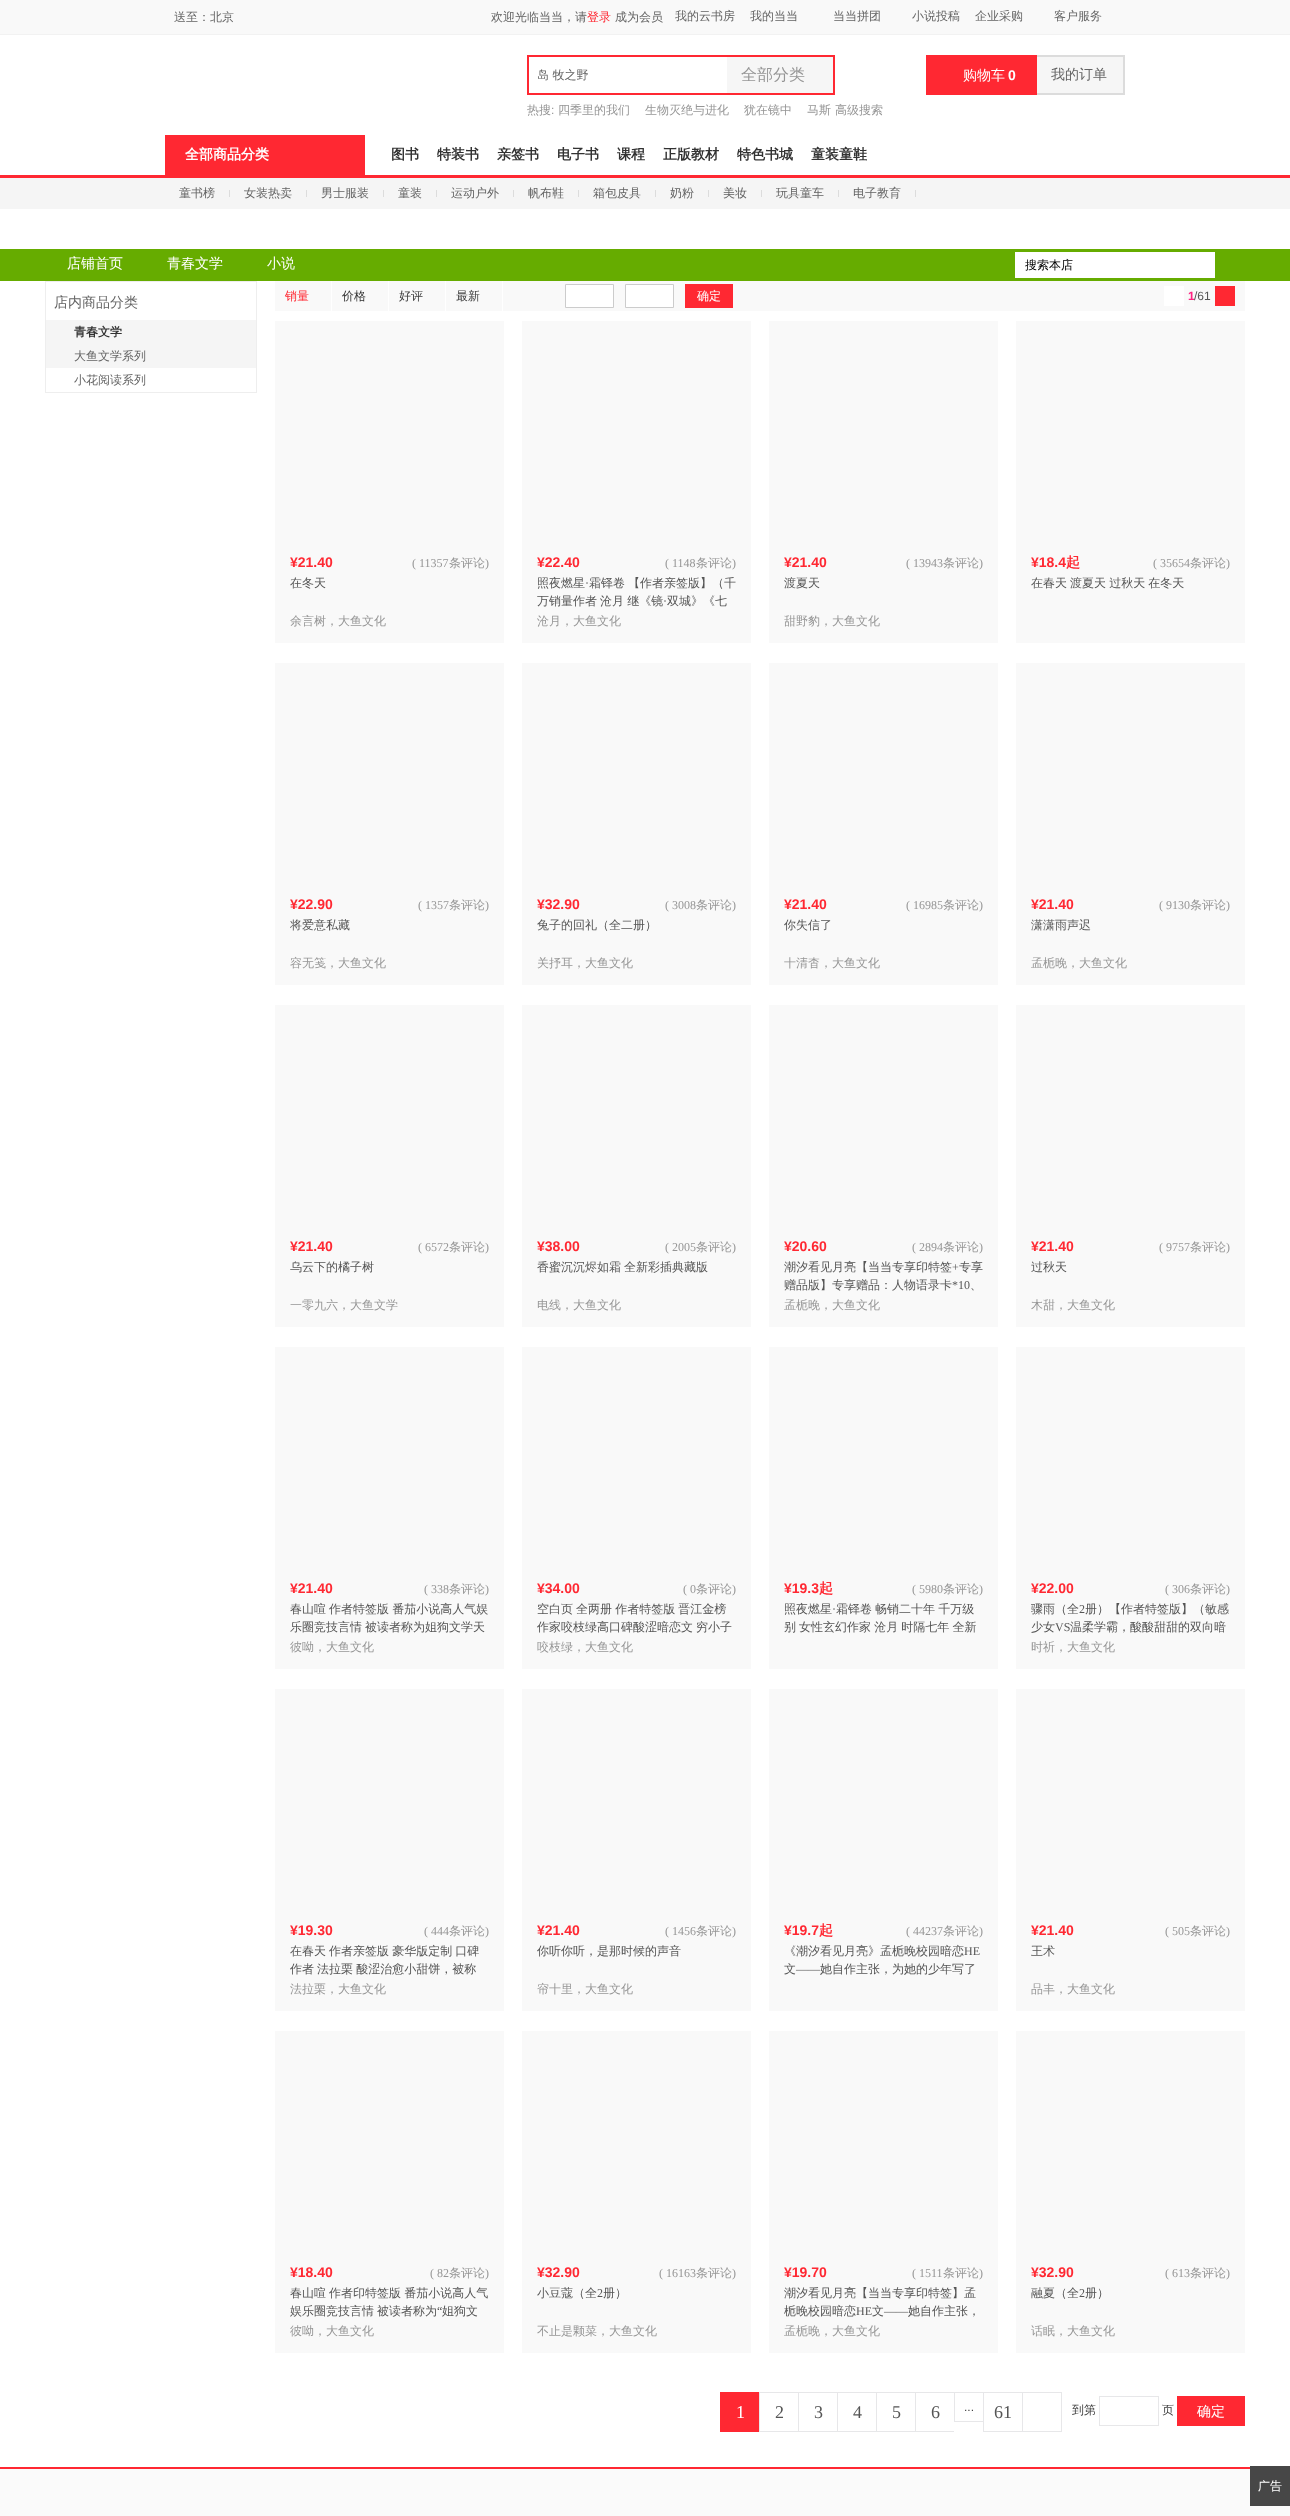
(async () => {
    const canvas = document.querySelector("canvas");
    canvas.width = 1290;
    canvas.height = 2516;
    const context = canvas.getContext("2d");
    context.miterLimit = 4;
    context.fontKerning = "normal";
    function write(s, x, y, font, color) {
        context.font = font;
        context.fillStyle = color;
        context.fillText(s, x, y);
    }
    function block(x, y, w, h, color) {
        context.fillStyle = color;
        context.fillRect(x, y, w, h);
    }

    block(0, 0, 1290, 2516, "rgb(255, 255, 255)");
    block(0, 0, 1290, 34, "rgb(249, 249, 249)");
    block(0, 34, 1290, 1, "rgb(242, 242, 242)");
    write("送至：北京", 174, 21, "500 12px WenQuanYi Zen Hei", "rgb(100, 100, 100)");
    write("欢迎光临当当，请", 491, 21, "500 12px WenQuanYi Zen Hei", "rgb(100, 100, 100)");
    write("登录", 587, 21, "500 12px WenQuanYi Zen Hei", "rgb(255, 40, 50)");
    write("成为会员", 615, 21, "500 12px WenQuanYi Zen Hei", "rgb(100, 100, 100)");
    write("我的云书房", 675, 20, "500 12px WenQuanYi Zen Hei", "rgb(100, 100, 100)");
    write("我的当当", 750, 20, "500 12px WenQuanYi Zen Hei", "rgb(100, 100, 100)");
    write("当当拼团", 833, 20, "500 12px WenQuanYi Zen Hei", "rgb(100, 100, 100)");
    write("小说投稿", 912, 20, "500 12px WenQuanYi Zen Hei", "rgb(100, 100, 100)");
    write("企业采购", 975, 20, "500 12px WenQuanYi Zen Hei", "rgb(100, 100, 100)");
    write("客户服务", 1054, 20, "500 12px WenQuanYi Zen Hei", "rgb(100, 100, 100)");
    block(527, 55, 308, 2, "rgb(255, 40, 50)");
    block(833, 55, 2, 40, "rgb(255, 40, 50)");
    block(527, 93, 308, 2, "rgb(255, 40, 50)");
    block(527, 55, 2, 40, "rgb(255, 40, 50)");
    write("岛 牧之野", 537, 79, "500 12px WenQuanYi Zen Hei", "rgb(100, 100, 100)");
    block(727, 57, 106, 36, "rgb(246, 246, 246)");
    write("全部分类", 741, 80, "500 16px WenQuanYi Zen Hei", "rgb(150, 150, 150)");
    block(926, 55, 111, 40, "rgb(255, 40, 50)");
    write("购物车", 963, 80, "500 14px WenQuanYi Zen Hei", "rgb(255, 255, 255)");
    write("0", 1008, 80, "bold 14px Liberation Sans", "rgb(255, 255, 255)");
    block(1037, 57, 86, 36, "rgb(246, 246, 246)");
    block(1037, 55, 88, 2, "rgb(220, 220, 220)");
    block(1123, 55, 2, 40, "rgb(220, 220, 220)");
    block(1037, 93, 88, 2, "rgb(220, 220, 220)");
    write("我的订单", 1051, 79, "500 14px WenQuanYi Zen Hei", "rgb(100, 100, 100)");
    write("热搜", 527, 114, "500 12px WenQuanYi Zen Hei", "rgb(150, 150, 150)");
    write(":", 551, 114, "12px Liberation Sans", "rgb(150, 150, 150)");
    write("四季里的我们", 558, 114, "500 12px WenQuanYi Zen Hei", "rgb(150, 150, 150)");
    write("生物灭绝与进化", 645, 114, "500 12px WenQuanYi Zen Hei", "rgb(150, 150, 150)");
    write("犹在镜中", 744, 114, "500 12px WenQuanYi Zen Hei", "rgb(150, 150, 150)");
    write("马斯", 807, 114, "500 12px WenQuanYi Zen Hei", "rgb(150, 150, 150)");
    write("高级搜索", 835, 114, "500 12px WenQuanYi Zen Hei", "rgb(150, 150, 150)");
    block(0, 175, 1290, 3, "rgb(255, 40, 50)");
    block(165, 135, 200, 40, "rgb(255, 40, 50)");
    write("全部商品分类", 185, 159, "bold 14px WenQuanYi Zen Hei", "rgb(255, 255, 255)");
    write("图书", 391, 159, "bold 14px WenQuanYi Zen Hei", "rgb(50, 50, 50)");
    write("特装书", 437, 159, "bold 14px WenQuanYi Zen Hei", "rgb(50, 50, 50)");
    write("亲签书", 497, 159, "bold 14px WenQuanYi Zen Hei", "rgb(50, 50, 50)");
    write("电子书", 557, 159, "bold 14px WenQuanYi Zen Hei", "rgb(50, 50, 50)");
    write("课程", 617, 159, "bold 14px WenQuanYi Zen Hei", "rgb(50, 50, 50)");
    write("正版教材", 663, 159, "bold 14px WenQuanYi Zen Hei", "rgb(50, 50, 50)");
    write("特色书城", 737, 159, "bold 14px WenQuanYi Zen Hei", "rgb(50, 50, 50)");
    write("童装童鞋", 811, 159, "bold 14px WenQuanYi Zen Hei", "rgb(50, 50, 50)");
    block(0, 178, 1290, 31, "rgb(245, 245, 245)");
    block(229, 190, 1, 7, "rgb(220, 220, 220)");
    write("童书榜", 179, 197, "500 12px WenQuanYi Zen Hei", "rgb(100, 100, 100)");
    block(306, 190, 1, 7, "rgb(220, 220, 220)");
    write("女装热卖", 244, 197, "500 12px WenQuanYi Zen Hei", "rgb(100, 100, 100)");
    block(383, 190, 1, 7, "rgb(220, 220, 220)");
    write("男士服装", 321, 197, "500 12px WenQuanYi Zen Hei", "rgb(100, 100, 100)");
    block(436, 190, 1, 7, "rgb(220, 220, 220)");
    write("童装", 398, 197, "500 12px WenQuanYi Zen Hei", "rgb(100, 100, 100)");
    block(513, 190, 1, 7, "rgb(220, 220, 220)");
    write("运动户外", 451, 197, "500 12px WenQuanYi Zen Hei", "rgb(100, 100, 100)");
    block(578, 190, 1, 7, "rgb(220, 220, 220)");
    write("帆布鞋", 528, 197, "500 12px WenQuanYi Zen Hei", "rgb(100, 100, 100)");
    block(655, 190, 1, 7, "rgb(220, 220, 220)");
    write("箱包皮具", 593, 197, "500 12px WenQuanYi Zen Hei", "rgb(100, 100, 100)");
    block(708, 190, 1, 7, "rgb(220, 220, 220)");
    write("奶粉", 670, 197, "500 12px WenQuanYi Zen Hei", "rgb(100, 100, 100)");
    block(761, 190, 1, 7, "rgb(220, 220, 220)");
    write("美妆", 723, 197, "500 12px WenQuanYi Zen Hei", "rgb(100, 100, 100)");
    block(838, 190, 1, 7, "rgb(220, 220, 220)");
    write("玩具童车", 776, 197, "500 12px WenQuanYi Zen Hei", "rgb(100, 100, 100)");
    block(915, 190, 1, 7, "rgb(220, 220, 220)");
    write("电子教育", 853, 197, "500 12px WenQuanYi Zen Hei", "rgb(100, 100, 100)");
    block(0, 249, 1290, 32, "rgb(102, 172, 0)");
    write("店铺首页", 67, 268, "500 14px WenQuanYi Zen Hei", "rgb(255, 255, 255)");
    write("青春文学", 167, 268, "500 14px WenQuanYi Zen Hei", "rgb(255, 255, 255)");
    write("小说", 267, 268, "500 14px WenQuanYi Zen Hei", "rgb(255, 255, 255)");
    block(1015, 252, 200, 26, "rgb(255, 255, 255)");
    write("搜索本店", 1025, 269, "500 12px WenQuanYi Zen Hei", "rgb(0, 0, 0)");
    context.strokeStyle = "rgb(238, 238, 238)";
    context.strokeRect(45.5, 281.5, 211, 111);
    write("店内商品分类", 54, 307, "500 14px WenQuanYi Zen Hei", "rgb(100, 100, 100)");
    block(46, 320, 210, 48, "rgb(245, 245, 245)");
    write("青春文学", 74, 336, "bold 12px WenQuanYi Zen Hei", "rgb(50, 50, 50)");
    write("大鱼文学系列", 74, 360, "500 12px WenQuanYi Zen Hei", "rgb(100, 100, 100)");
    write("小花阅读系列", 74, 384, "500 12px WenQuanYi Zen Hei", "rgb(100, 100, 100)");
    block(275, 281, 970, 30, "rgb(249, 249, 249)");
    block(331, 281, 1, 30, "rgb(255, 255, 255)");
    write("销量", 285, 300, "500 12px WenQuanYi Zen Hei", "rgb(255, 40, 50)");
    block(388, 281, 1, 30, "rgb(255, 255, 255)");
    write("价格", 342, 300, "500 12px WenQuanYi Zen Hei", "rgb(50, 50, 50)");
    block(445, 281, 1, 30, "rgb(255, 255, 255)");
    write("好评", 399, 300, "500 12px WenQuanYi Zen Hei", "rgb(64, 64, 64)");
    block(502, 281, 1, 30, "rgb(255, 255, 255)");
    write("最新", 456, 300, "500 12px WenQuanYi Zen Hei", "rgb(64, 64, 64)");
    context.fillStyle = "rgb(255, 255, 255)";
    context.beginPath();
    context.rect(565.5, 284.5, 48, 23);
    context.fill();
    context.strokeStyle = "rgb(204, 204, 204)";
    context.stroke();
    context.beginPath();
    context.rect(625.5, 284.5, 48, 23);
    context.fill();
    context.stroke();
    block(685, 284, 48, 24, "rgb(255, 40, 50)");
    write("确定", 697, 300, "500 12px WenQuanYi Zen Hei", "rgb(255, 255, 255)");
    block(1164, 286, 20, 20, "rgb(255, 255, 255)");
    write("1", 1188, 300, "bold 12px Liberation Sans", "rgb(255, 35, 130)");
    write("/61", 1194, 300, "12px Liberation Sans", "rgb(85, 85, 85)");
    block(1215, 286, 20, 20, "rgb(255, 40, 50)");
    block(275, 321, 229, 322, "rgb(249, 249, 249)");
    write("¥21.40", 290, 567, "bold 14px Liberation Sans", "rgb(255, 40, 50)");
    write("( 11357", 412, 567, "12px Liberation Serif", "rgb(150, 150, 150)");
    write("条评论", 449, 567, "500 12px WenQuanYi Zen Hei", "rgb(150, 150, 150)");
    write(")", 485, 567, "12px Liberation Serif", "rgb(150, 150, 150)");
    write("在冬天", 290, 587, "500 12px WenQuanYi Zen Hei", "rgb(85, 85, 85)");
    write("余言树，大鱼文化", 290, 625, "500 12px WenQuanYi Zen Hei", "rgb(150, 150, 150)");
    block(522, 321, 229, 322, "rgb(249, 249, 249)");
    write("¥22.40", 537, 567, "bold 14px Liberation Sans", "rgb(255, 40, 50)");
    write("( 1148", 665, 567, "12px Liberation Serif", "rgb(150, 150, 150)");
    write("条评论", 696, 567, "500 12px WenQuanYi Zen Hei", "rgb(150, 150, 150)");
    write(")", 732, 567, "12px Liberation Serif", "rgb(150, 150, 150)");
    write("照夜燃星", 537, 587, "500 12px WenQuanYi Zen Hei", "rgb(85, 85, 85)");
    write("·", 585, 587, "12px Liberation Serif", "rgb(85, 85, 85)");
    context.wordSpacing = "-0.5px";
    write("霜铎卷 【作者亲签版】（千", 589, 587, "500 12px WenQuanYi Zen Hei", "rgb(85, 85, 85)");
    write("万销量作者 沧月 继《镜", 537, 605, "500 12px WenQuanYi Zen Hei", "rgb(85, 85, 85)");
    context.wordSpacing = "0px";
    write("·", 663, 605, "12px Liberation Serif", "rgb(85, 85, 85)");
    write("双城》《七", 667, 605, "500 12px WenQuanYi Zen Hei", "rgb(85, 85, 85)");
    write("沧月，大鱼文化", 537, 625, "500 12px WenQuanYi Zen Hei", "rgb(150, 150, 150)");
    block(769, 321, 229, 322, "rgb(249, 249, 249)");
    write("¥21.40", 784, 567, "bold 14px Liberation Sans", "rgb(255, 40, 50)");
    write("( 13943", 906, 567, "12px Liberation Serif", "rgb(150, 150, 150)");
    write("条评论", 943, 567, "500 12px WenQuanYi Zen Hei", "rgb(150, 150, 150)");
    write(")", 979, 567, "12px Liberation Serif", "rgb(150, 150, 150)");
    write("渡夏天", 784, 587, "500 12px WenQuanYi Zen Hei", "rgb(85, 85, 85)");
    write("甜野豹，大鱼文化", 784, 625, "500 12px WenQuanYi Zen Hei", "rgb(150, 150, 150)");
    block(1016, 321, 229, 322, "rgb(249, 249, 249)");
    write("¥18.4", 1031, 567, "bold 14px Liberation Sans", "rgb(255, 40, 50)");
    write("起", 1066, 567, "bold 14px WenQuanYi Zen Hei", "rgb(255, 40, 50)");
    write("( 35654", 1153, 567, "12px Liberation Serif", "rgb(150, 150, 150)");
    write("条评论", 1190, 567, "500 12px WenQuanYi Zen Hei", "rgb(150, 150, 150)");
    write(")", 1226, 567, "12px Liberation Serif", "rgb(150, 150, 150)");
    context.wordSpacing = "-0.5px";
    write("在春天 渡夏天 过秋天 在冬天", 1031, 587, "500 12px WenQuanYi Zen Hei", "rgb(85, 85, 85)");
    block(275, 663, 229, 322, "rgb(249, 249, 249)");
    context.wordSpacing = "0px";
    write("¥22.90", 290, 909, "bold 14px Liberation Sans", "rgb(255, 40, 50)");
    write("( 1357", 418, 909, "12px Liberation Serif", "rgb(150, 150, 150)");
    write("条评论", 449, 909, "500 12px WenQuanYi Zen Hei", "rgb(150, 150, 150)");
    write(")", 485, 909, "12px Liberation Serif", "rgb(150, 150, 150)");
    write("将爱意私藏", 290, 929, "500 12px WenQuanYi Zen Hei", "rgb(85, 85, 85)");
    write("容无笺，大鱼文化", 290, 967, "500 12px WenQuanYi Zen Hei", "rgb(150, 150, 150)");
    block(522, 663, 229, 322, "rgb(249, 249, 249)");
    write("¥32.90", 537, 909, "bold 14px Liberation Sans", "rgb(255, 40, 50)");
    write("( 3008", 665, 909, "12px Liberation Serif", "rgb(150, 150, 150)");
    write("条评论", 696, 909, "500 12px WenQuanYi Zen Hei", "rgb(150, 150, 150)");
    write(")", 732, 909, "12px Liberation Serif", "rgb(150, 150, 150)");
    write("兔子的回礼（全二册）", 537, 929, "500 12px WenQuanYi Zen Hei", "rgb(85, 85, 85)");
    write("关抒耳，大鱼文化", 537, 967, "500 12px WenQuanYi Zen Hei", "rgb(150, 150, 150)");
    block(769, 663, 229, 322, "rgb(249, 249, 249)");
    write("¥21.40", 784, 909, "bold 14px Liberation Sans", "rgb(255, 40, 50)");
    write("( 16985", 906, 909, "12px Liberation Serif", "rgb(150, 150, 150)");
    write("条评论", 943, 909, "500 12px WenQuanYi Zen Hei", "rgb(150, 150, 150)");
    write(")", 979, 909, "12px Liberation Serif", "rgb(150, 150, 150)");
    write("你失信了", 784, 929, "500 12px WenQuanYi Zen Hei", "rgb(85, 85, 85)");
    write("十清杳，大鱼文化", 784, 967, "500 12px WenQuanYi Zen Hei", "rgb(150, 150, 150)");
    block(1016, 663, 229, 322, "rgb(249, 249, 249)");
    write("¥21.40", 1031, 909, "bold 14px Liberation Sans", "rgb(255, 40, 50)");
    write("( 9130", 1159, 909, "12px Liberation Serif", "rgb(150, 150, 150)");
    write("条评论", 1190, 909, "500 12px WenQuanYi Zen Hei", "rgb(150, 150, 150)");
    write(")", 1226, 909, "12px Liberation Serif", "rgb(150, 150, 150)");
    write("潇潇雨声迟", 1031, 929, "500 12px WenQuanYi Zen Hei", "rgb(85, 85, 85)");
    write("孟栀晚，大鱼文化", 1031, 967, "500 12px WenQuanYi Zen Hei", "rgb(150, 150, 150)");
    block(275, 1005, 229, 322, "rgb(249, 249, 249)");
    write("¥21.40", 290, 1251, "bold 14px Liberation Sans", "rgb(255, 40, 50)");
    write("( 6572", 418, 1251, "12px Liberation Serif", "rgb(150, 150, 150)");
    write("条评论", 449, 1251, "500 12px WenQuanYi Zen Hei", "rgb(150, 150, 150)");
    write(")", 485, 1251, "12px Liberation Serif", "rgb(150, 150, 150)");
    write("乌云下的橘子树", 290, 1271, "500 12px WenQuanYi Zen Hei", "rgb(85, 85, 85)");
    write("一零九六，大鱼文学", 290, 1309, "500 12px WenQuanYi Zen Hei", "rgb(150, 150, 150)");
    block(522, 1005, 229, 322, "rgb(249, 249, 249)");
    write("¥38.00", 537, 1251, "bold 14px Liberation Sans", "rgb(255, 40, 50)");
    write("( 2005", 665, 1251, "12px Liberation Serif", "rgb(150, 150, 150)");
    write("条评论", 696, 1251, "500 12px WenQuanYi Zen Hei", "rgb(150, 150, 150)");
    write(")", 732, 1251, "12px Liberation Serif", "rgb(150, 150, 150)");
    context.wordSpacing = "-0.5px";
    write("香蜜沉沉烬如霜 全新彩插典藏版", 537, 1271, "500 12px WenQuanYi Zen Hei", "rgb(85, 85, 85)");
    context.wordSpacing = "0px";
    write("电线，大鱼文化", 537, 1309, "500 12px WenQuanYi Zen Hei", "rgb(150, 150, 150)");
    block(769, 1005, 229, 322, "rgb(249, 249, 249)");
    write("¥20.60", 784, 1251, "bold 14px Liberation Sans", "rgb(255, 40, 50)");
    write("( 2894", 912, 1251, "12px Liberation Serif", "rgb(150, 150, 150)");
    write("条评论", 943, 1251, "500 12px WenQuanYi Zen Hei", "rgb(150, 150, 150)");
    write(")", 979, 1251, "12px Liberation Serif", "rgb(150, 150, 150)");
    write("潮汐看见月亮【当当专享印特签", 784, 1271, "500 12px WenQuanYi Zen Hei", "rgb(85, 85, 85)");
    write("+", 952, 1271, "12px Liberation Serif", "rgb(85, 85, 85)");
    write("专享", 959, 1271, "500 12px WenQuanYi Zen Hei", "rgb(85, 85, 85)");
    write("赠品版】专享赠品：人物语录卡", 784, 1289, "500 12px WenQuanYi Zen Hei", "rgb(85, 85, 85)");
    write("*10", 952, 1289, "12px Liberation Serif", "rgb(85, 85, 85)");
    write("、", 970, 1289, "500 12px WenQuanYi Zen Hei", "rgb(85, 85, 85)");
    write("孟栀晚，大鱼文化", 784, 1309, "500 12px WenQuanYi Zen Hei", "rgb(150, 150, 150)");
    block(1016, 1005, 229, 322, "rgb(249, 249, 249)");
    write("¥21.40", 1031, 1251, "bold 14px Liberation Sans", "rgb(255, 40, 50)");
    write("( 9757", 1159, 1251, "12px Liberation Serif", "rgb(150, 150, 150)");
    write("条评论", 1190, 1251, "500 12px WenQuanYi Zen Hei", "rgb(150, 150, 150)");
    write(")", 1226, 1251, "12px Liberation Serif", "rgb(150, 150, 150)");
    write("过秋天", 1031, 1271, "500 12px WenQuanYi Zen Hei", "rgb(85, 85, 85)");
    write("木甜，大鱼文化", 1031, 1309, "500 12px WenQuanYi Zen Hei", "rgb(150, 150, 150)");
    block(275, 1347, 229, 322, "rgb(249, 249, 249)");
    write("¥21.40", 290, 1593, "bold 14px Liberation Sans", "rgb(255, 40, 50)");
    write("( 338", 424, 1593, "12px Liberation Serif", "rgb(150, 150, 150)");
    write("条评论", 449, 1593, "500 12px WenQuanYi Zen Hei", "rgb(150, 150, 150)");
    write(")", 485, 1593, "12px Liberation Serif", "rgb(150, 150, 150)");
    context.wordSpacing = "-0.5px";
    write("春山喧 作者特签版 番茄小说高人气娱", 290, 1613, "500 12px WenQuanYi Zen Hei", "rgb(85, 85, 85)");
    write("乐圈竞技言情 被读者称为姐狗文学天", 290, 1631, "500 12px WenQuanYi Zen Hei", "rgb(85, 85, 85)");
    context.wordSpacing = "0px";
    write("彼呦，大鱼文化", 290, 1651, "500 12px WenQuanYi Zen Hei", "rgb(150, 150, 150)");
    block(522, 1347, 229, 322, "rgb(249, 249, 249)");
    write("¥34.00", 537, 1593, "bold 14px Liberation Sans", "rgb(255, 40, 50)");
    write("( 0", 683, 1593, "12px Liberation Serif", "rgb(150, 150, 150)");
    write("条评论", 696, 1593, "500 12px WenQuanYi Zen Hei", "rgb(150, 150, 150)");
    write(")", 732, 1593, "12px Liberation Serif", "rgb(150, 150, 150)");
    context.wordSpacing = "-0.5px";
    write("空白页 全两册 作者特签版 晋江金榜", 537, 1613, "500 12px WenQuanYi Zen Hei", "rgb(85, 85, 85)");
    write("作家咬枝绿高口碑酸涩暗恋文 穷小子", 537, 1631, "500 12px WenQuanYi Zen Hei", "rgb(85, 85, 85)");
    context.wordSpacing = "0px";
    write("咬枝绿，大鱼文化", 537, 1651, "500 12px WenQuanYi Zen Hei", "rgb(150, 150, 150)");
    block(769, 1347, 229, 322, "rgb(249, 249, 249)");
    write("¥19.3", 784, 1593, "bold 14px Liberation Sans", "rgb(255, 40, 50)");
    write("起", 819, 1593, "bold 14px WenQuanYi Zen Hei", "rgb(255, 40, 50)");
    write("( 5980", 912, 1593, "12px Liberation Serif", "rgb(150, 150, 150)");
    write("条评论", 943, 1593, "500 12px WenQuanYi Zen Hei", "rgb(150, 150, 150)");
    write(")", 979, 1593, "12px Liberation Serif", "rgb(150, 150, 150)");
    write("照夜燃星", 784, 1613, "500 12px WenQuanYi Zen Hei", "rgb(85, 85, 85)");
    write("·", 832, 1613, "12px Liberation Serif", "rgb(85, 85, 85)");
    context.wordSpacing = "-0.5px";
    write("霜铎卷 畅销二十年 千万级", 836, 1613, "500 12px WenQuanYi Zen Hei", "rgb(85, 85, 85)");
    write("别 女性玄幻作家 沧月 时隔七年 全新", 784, 1631, "500 12px WenQuanYi Zen Hei", "rgb(85, 85, 85)");
    block(1016, 1347, 229, 322, "rgb(249, 249, 249)");
    context.wordSpacing = "0px";
    write("¥22.00", 1031, 1593, "bold 14px Liberation Sans", "rgb(255, 40, 50)");
    write("( 306", 1165, 1593, "12px Liberation Serif", "rgb(150, 150, 150)");
    write("条评论", 1190, 1593, "500 12px WenQuanYi Zen Hei", "rgb(150, 150, 150)");
    write(")", 1226, 1593, "12px Liberation Serif", "rgb(150, 150, 150)");
    write("骤雨（全", 1031, 1613, "500 12px WenQuanYi Zen Hei", "rgb(85, 85, 85)");
    write("2", 1079, 1613, "12px Liberation Serif", "rgb(85, 85, 85)");
    write("册）【作者特签版】（敏感", 1085, 1613, "500 12px WenQuanYi Zen Hei", "rgb(85, 85, 85)");
    write("少女", 1031, 1631, "500 12px WenQuanYi Zen Hei", "rgb(85, 85, 85)");
    write("VS", 1055, 1631, "12px Liberation Serif", "rgb(85, 85, 85)");
    write("温柔学霸，酸酸甜甜的双向暗", 1070, 1631, "500 12px WenQuanYi Zen Hei", "rgb(85, 85, 85)");
    write("时祈，大鱼文化", 1031, 1651, "500 12px WenQuanYi Zen Hei", "rgb(150, 150, 150)");
    block(275, 1689, 229, 322, "rgb(249, 249, 249)");
    write("¥19.30", 290, 1935, "bold 14px Liberation Sans", "rgb(255, 40, 50)");
    write("( 444", 424, 1935, "12px Liberation Serif", "rgb(150, 150, 150)");
    write("条评论", 449, 1935, "500 12px WenQuanYi Zen Hei", "rgb(150, 150, 150)");
    write(")", 485, 1935, "12px Liberation Serif", "rgb(150, 150, 150)");
    context.wordSpacing = "-0.5px";
    write("在春天 作者亲签版 豪华版定制 口碑", 290, 1955, "500 12px WenQuanYi Zen Hei", "rgb(85, 85, 85)");
    write("作者 法拉栗 酸涩治愈小甜饼，被称", 290, 1973, "500 12px WenQuanYi Zen Hei", "rgb(85, 85, 85)");
    context.wordSpacing = "0px";
    write("法拉栗，大鱼文化", 290, 1993, "500 12px WenQuanYi Zen Hei", "rgb(150, 150, 150)");
    block(522, 1689, 229, 322, "rgb(249, 249, 249)");
    write("¥21.40", 537, 1935, "bold 14px Liberation Sans", "rgb(255, 40, 50)");
    write("( 1456", 665, 1935, "12px Liberation Serif", "rgb(150, 150, 150)");
    write("条评论", 696, 1935, "500 12px WenQuanYi Zen Hei", "rgb(150, 150, 150)");
    write(")", 732, 1935, "12px Liberation Serif", "rgb(150, 150, 150)");
    write("你听你听，是那时候的声音", 537, 1955, "500 12px WenQuanYi Zen Hei", "rgb(85, 85, 85)");
    write("帘十里，大鱼文化", 537, 1993, "500 12px WenQuanYi Zen Hei", "rgb(150, 150, 150)");
    block(769, 1689, 229, 322, "rgb(249, 249, 249)");
    write("¥19.7", 784, 1935, "bold 14px Liberation Sans", "rgb(255, 40, 50)");
    write("起", 819, 1935, "bold 14px WenQuanYi Zen Hei", "rgb(255, 40, 50)");
    write("( 44237", 906, 1935, "12px Liberation Serif", "rgb(150, 150, 150)");
    write("条评论", 943, 1935, "500 12px WenQuanYi Zen Hei", "rgb(150, 150, 150)");
    write(")", 979, 1935, "12px Liberation Serif", "rgb(150, 150, 150)");
    write("《潮汐看见月亮》孟栀晚校园暗恋", 784, 1955, "500 12px WenQuanYi Zen Hei", "rgb(85, 85, 85)");
    write("HE", 964, 1955, "12px Liberation Serif", "rgb(85, 85, 85)");
    write("文", 784, 1973, "500 12px WenQuanYi Zen Hei", "rgb(85, 85, 85)");
    write("——", 796, 1973, "12px Liberation Serif", "rgb(85, 85, 85)");
    write("她自作主张，为她的少年写了", 820, 1973, "500 12px WenQuanYi Zen Hei", "rgb(85, 85, 85)");
    block(1016, 1689, 229, 322, "rgb(249, 249, 249)");
    write("¥21.40", 1031, 1935, "bold 14px Liberation Sans", "rgb(255, 40, 50)");
    write("( 505", 1165, 1935, "12px Liberation Serif", "rgb(150, 150, 150)");
    write("条评论", 1190, 1935, "500 12px WenQuanYi Zen Hei", "rgb(150, 150, 150)");
    write(")", 1226, 1935, "12px Liberation Serif", "rgb(150, 150, 150)");
    write("王术", 1031, 1955, "500 12px WenQuanYi Zen Hei", "rgb(85, 85, 85)");
    write("品丰，大鱼文化", 1031, 1993, "500 12px WenQuanYi Zen Hei", "rgb(150, 150, 150)");
    block(275, 2031, 229, 322, "rgb(249, 249, 249)");
    write("¥18.40", 290, 2277, "bold 14px Liberation Sans", "rgb(255, 40, 50)");
    write("( 82", 430, 2277, "12px Liberation Serif", "rgb(150, 150, 150)");
    write("条评论", 449, 2277, "500 12px WenQuanYi Zen Hei", "rgb(150, 150, 150)");
    write(")", 485, 2277, "12px Liberation Serif", "rgb(150, 150, 150)");
    context.wordSpacing = "-0.5px";
    write("春山喧 作者印特签版 番茄小说高人气", 290, 2297, "500 12px WenQuanYi Zen Hei", "rgb(85, 85, 85)");
    write("娱乐圈竞技言情 被读者称为", 290, 2315, "500 12px WenQuanYi Zen Hei", "rgb(85, 85, 85)");
    context.wordSpacing = "0px";
    write("“", 437, 2315, "12px Liberation Serif", "rgb(85, 85, 85)");
    write("姐狗文", 442, 2315, "500 12px WenQuanYi Zen Hei", "rgb(85, 85, 85)");
    write("彼呦，大鱼文化", 290, 2335, "500 12px WenQuanYi Zen Hei", "rgb(150, 150, 150)");
    block(522, 2031, 229, 322, "rgb(249, 249, 249)");
    write("¥32.90", 537, 2277, "bold 14px Liberation Sans", "rgb(255, 40, 50)");
    write("( 16163", 659, 2277, "12px Liberation Serif", "rgb(150, 150, 150)");
    write("条评论", 696, 2277, "500 12px WenQuanYi Zen Hei", "rgb(150, 150, 150)");
    write(")", 732, 2277, "12px Liberation Serif", "rgb(150, 150, 150)");
    write("小豆蔻（全", 537, 2297, "500 12px WenQuanYi Zen Hei", "rgb(85, 85, 85)");
    write("2", 597, 2297, "12px Liberation Serif", "rgb(85, 85, 85)");
    write("册）", 603, 2297, "500 12px WenQuanYi Zen Hei", "rgb(85, 85, 85)");
    write("不止是颗菜，大鱼文化", 537, 2335, "500 12px WenQuanYi Zen Hei", "rgb(150, 150, 150)");
    block(769, 2031, 229, 322, "rgb(249, 249, 249)");
    write("¥19.70", 784, 2277, "bold 14px Liberation Sans", "rgb(255, 40, 50)");
    write("( 1511", 912, 2277, "12px Liberation Serif", "rgb(150, 150, 150)");
    write("条评论", 943, 2277, "500 12px WenQuanYi Zen Hei", "rgb(150, 150, 150)");
    write(")", 979, 2277, "12px Liberation Serif", "rgb(150, 150, 150)");
    write("潮汐看见月亮【当当专享印特签】孟", 784, 2297, "500 12px WenQuanYi Zen Hei", "rgb(85, 85, 85)");
    write("栀晚校园暗恋", 784, 2315, "500 12px WenQuanYi Zen Hei", "rgb(85, 85, 85)");
    write("HE", 856, 2315, "12px Liberation Serif", "rgb(85, 85, 85)");
    write("文", 872, 2315, "500 12px WenQuanYi Zen Hei", "rgb(85, 85, 85)");
    write("——", 884, 2315, "12px Liberation Serif", "rgb(85, 85, 85)");
    write("她自作主张，", 908, 2315, "500 12px WenQuanYi Zen Hei", "rgb(85, 85, 85)");
    write("孟栀晚，大鱼文化", 784, 2335, "500 12px WenQuanYi Zen Hei", "rgb(150, 150, 150)");
    block(1016, 2031, 229, 322, "rgb(249, 249, 249)");
    write("¥32.90", 1031, 2277, "bold 14px Liberation Sans", "rgb(255, 40, 50)");
    write("( 613", 1165, 2277, "12px Liberation Serif", "rgb(150, 150, 150)");
    write("条评论", 1190, 2277, "500 12px WenQuanYi Zen Hei", "rgb(150, 150, 150)");
    write(")", 1226, 2277, "12px Liberation Serif", "rgb(150, 150, 150)");
    write("融夏（全", 1031, 2297, "500 12px WenQuanYi Zen Hei", "rgb(85, 85, 85)");
    write("2", 1079, 2297, "12px Liberation Serif", "rgb(85, 85, 85)");
    write("册）", 1085, 2297, "500 12px WenQuanYi Zen Hei", "rgb(85, 85, 85)");
    write("话眠，大鱼文化", 1031, 2335, "500 12px WenQuanYi Zen Hei", "rgb(150, 150, 150)");
    block(1061, 2392, 1, 40, "rgb(231, 231, 233)");
    block(721, 2393, 38, 38, "rgb(255, 40, 50)");
    block(720, 2392, 39, 1, "rgb(255, 40, 50)");
    block(720, 2431, 39, 1, "rgb(255, 40, 50)");
    block(720, 2392, 1, 40, "rgb(255, 40, 50)");
    write("1", 736, 2418, "18px Liberation Serif", "rgb(255, 255, 255)");
    block(759, 2392, 195, 1, "rgb(231, 231, 233)");
    block(759, 2431, 195, 1, "rgb(231, 231, 233)");
    block(759, 2392, 1, 40, "rgb(231, 231, 233)");
    write("2", 775, 2418, "18px Liberation Serif", "rgb(85, 85, 85)");
    block(798, 2392, 1, 40, "rgb(231, 231, 233)");
    write("3", 814, 2418, "18px Liberation Serif", "rgb(85, 85, 85)");
    block(837, 2392, 1, 40, "rgb(231, 231, 233)");
    write("4", 853, 2418, "18px Liberation Serif", "rgb(85, 85, 85)");
    block(876, 2392, 1, 40, "rgb(231, 231, 233)");
    write("5", 892, 2418, "18px Liberation Serif", "rgb(85, 85, 85)");
    block(915, 2392, 1, 40, "rgb(231, 231, 233)");
    write("6", 931, 2418, "18px Liberation Serif", "rgb(85, 85, 85)");
    block(954, 2392, 107, 1, "rgb(231, 231, 233)");
    block(954, 2421, 29, 1, "rgb(231, 231, 233)");
    block(954, 2392, 1, 30, "rgb(231, 231, 233)");
    write("...", 964, 2411, "12px Liberation Sans", "rgb(64, 64, 64)");
    block(983, 2431, 78, 1, "rgb(231, 231, 233)");
    block(983, 2392, 1, 40, "rgb(231, 231, 233)");
    write("61", 994, 2418, "18px Liberation Serif", "rgb(85, 85, 85)");
    block(1022, 2392, 1, 40, "rgb(231, 231, 233)");
    write("到第", 1072, 2414, "500 12px WenQuanYi Zen Hei", "rgb(64, 64, 64)");
    context.strokeStyle = "rgb(231, 231, 233)";
    context.strokeRect(1099.5, 2396.5, 59, 29);
    write("页", 1162, 2414, "500 12px WenQuanYi Zen Hei", "rgb(64, 64, 64)");
    block(1177, 2396, 68, 30, "rgb(255, 40, 50)");
    write("确定", 1197, 2416, "500 14px WenQuanYi Zen Hei", "rgb(255, 255, 255)");
    block(0, 2467, 1250, 2, "rgb(255, 40, 50)");
    block(0, 2469, 1290, 47, "rgb(250, 250, 250)");
    block(1250, 2466, 40, 40, "rgb(71, 71, 71)");
    write("广告", 1258, 2490, "500 12px WenQuanYi Zen Hei", "rgb(255, 255, 255)");
})();
